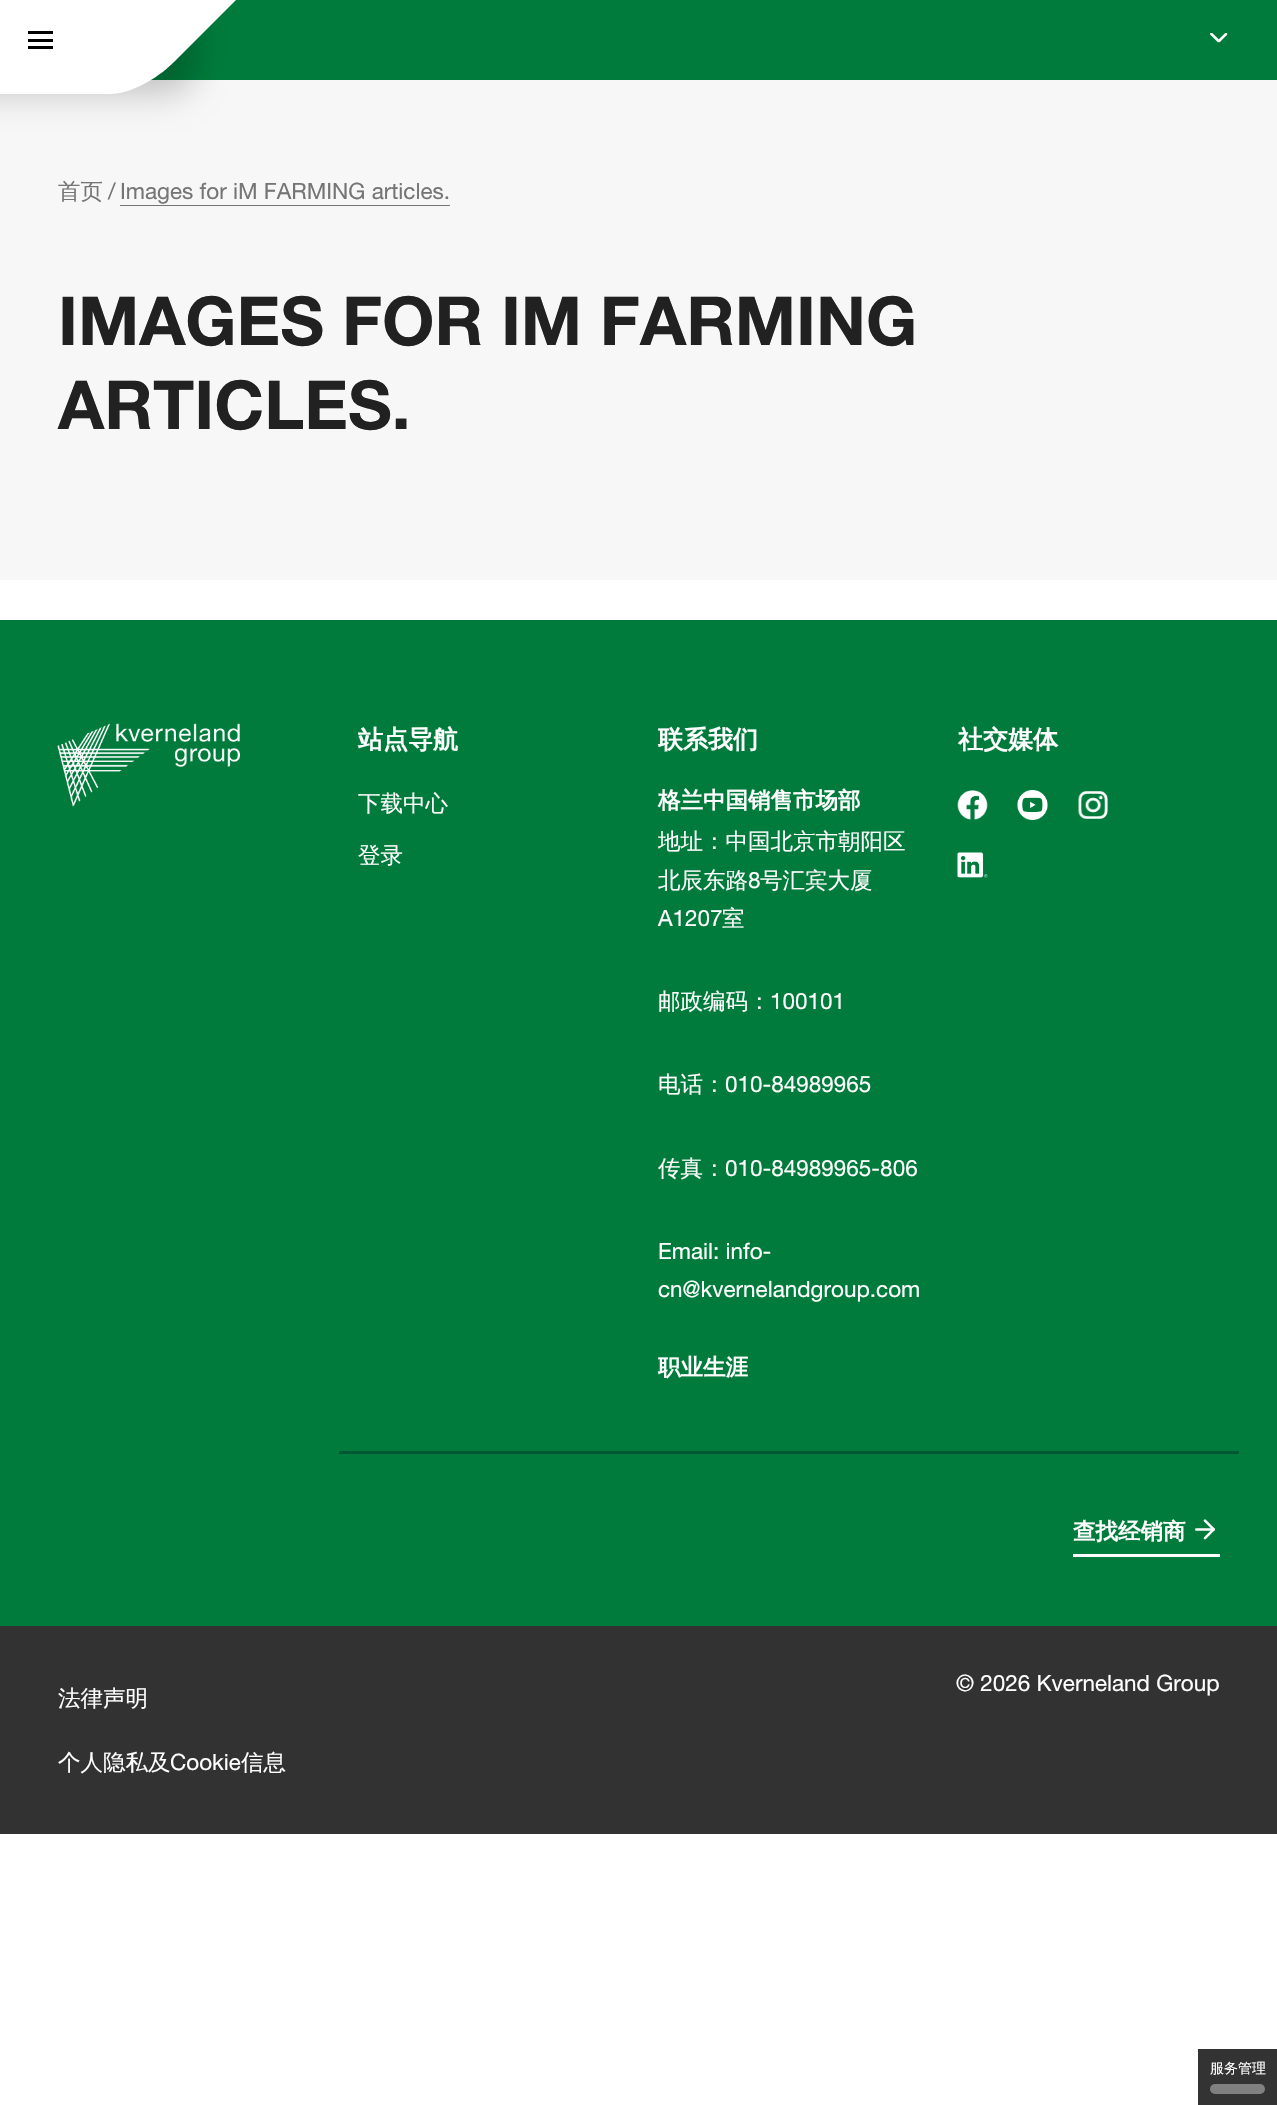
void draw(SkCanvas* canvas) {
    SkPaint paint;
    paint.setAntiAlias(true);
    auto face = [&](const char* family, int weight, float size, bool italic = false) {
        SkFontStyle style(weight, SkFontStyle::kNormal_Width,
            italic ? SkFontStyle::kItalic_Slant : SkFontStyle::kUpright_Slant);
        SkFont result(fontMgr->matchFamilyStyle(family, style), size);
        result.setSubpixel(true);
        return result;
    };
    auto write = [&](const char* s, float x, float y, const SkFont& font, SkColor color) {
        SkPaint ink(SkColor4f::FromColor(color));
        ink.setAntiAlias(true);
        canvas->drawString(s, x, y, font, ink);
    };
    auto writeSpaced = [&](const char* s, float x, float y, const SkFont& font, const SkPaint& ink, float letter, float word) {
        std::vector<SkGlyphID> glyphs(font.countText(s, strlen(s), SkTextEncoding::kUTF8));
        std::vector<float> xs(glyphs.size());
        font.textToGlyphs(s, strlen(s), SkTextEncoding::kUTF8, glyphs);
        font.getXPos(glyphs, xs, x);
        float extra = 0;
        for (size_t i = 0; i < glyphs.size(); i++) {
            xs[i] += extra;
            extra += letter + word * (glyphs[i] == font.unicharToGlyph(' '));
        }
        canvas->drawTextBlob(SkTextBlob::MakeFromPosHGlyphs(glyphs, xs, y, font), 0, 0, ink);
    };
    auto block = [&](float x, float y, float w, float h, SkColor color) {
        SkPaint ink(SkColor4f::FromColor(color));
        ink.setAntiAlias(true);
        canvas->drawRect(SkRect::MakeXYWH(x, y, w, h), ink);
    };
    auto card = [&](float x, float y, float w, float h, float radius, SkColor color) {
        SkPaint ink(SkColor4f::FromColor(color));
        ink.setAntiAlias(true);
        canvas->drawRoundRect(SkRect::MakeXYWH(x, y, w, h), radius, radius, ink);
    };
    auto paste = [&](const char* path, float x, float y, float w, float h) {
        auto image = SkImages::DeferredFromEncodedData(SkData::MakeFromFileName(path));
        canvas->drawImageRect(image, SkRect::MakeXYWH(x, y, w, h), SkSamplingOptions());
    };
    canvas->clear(SK_ColorWHITE);
    block(151, 0, 1126, 80, SkColorSetRGB(0, 123, 59));
    block(0, 80, 1277, 500, SkColorSetRGB(247, 247, 247));
    paint.setColor(SkColorSetARGB(51, 0, 0, 0));
    paint.setMaskFilter(SkMaskFilter::MakeBlur(kNormal_SkBlurStyle, 16));
    canvas->drawRoundRect(SkRect::MakeXYWH(-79, -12, 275, 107), 31, 31, paint);
    paint.setMaskFilter(nullptr);
    paint.setColor(SK_ColorWHITE);
    canvas->drawPath(SkPathBuilder().moveTo(-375, -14).lineTo(250, -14).lineTo(174, 62).cubicTo(156, 80, 129, 94, 111, 94).lineTo(-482, 94).close().detach(), paint);
    block(28, 39, 25, 3, SK_ColorBLACK);
    block(28, 31, 25, 3, SK_ColorBLACK);
    block(28, 46, 25, 3, SK_ColorBLACK);
    paste("pic1.png", 1210, 33, 18, 10);
    auto kFont1 = face("WenQuanYi Zen Hei", 500, 22.5f);
    write("首页", 58, 199, kFont1, SkColorSetRGB(117, 117, 117));
    auto kFont2 = face("Helvetica Neue", 400, 22.5f);
    write("/", 108, 199, kFont2, SkColorSetRGB(117, 117, 117));
    write("Images for iM FARMING articles.", 120, 199, kFont2, SkColorSetRGB(117, 117, 117));
    block(120, 205, 330, 1, SkColorSetRGB(117, 117, 117));
    auto kFont3 = face("Helvetica Neue", 700, 67.5f);
    paint.setColor(SkColorSetRGB(33, 33, 33));
    writeSpaced("IMAGES FOR IM FARMING", 58, 345, kFont3, paint, 0, -1);
    write("ARTICLES.", 58, 429, kFont3, SkColorSetRGB(33, 33, 33));
    block(0, 620, 1277, 1006, SkColorSetRGB(0, 123, 59));
    paste("pic2.png", 57, 723, 183, 84);
    auto kFont4 = face("WenQuanYi Zen Hei", 700, 25);
    write("站点导航", 358, 748, kFont4, SK_ColorWHITE);
    write("下载中心", 358, 811, kFont1, SK_ColorWHITE);
    write("登录", 358, 863, kFont1, SK_ColorWHITE);
    write("联系我们", 658, 748, kFont4, SK_ColorWHITE);
    auto kFont5 = face("WenQuanYi Zen Hei", 700, 22.5f);
    write("格兰中国销售市场部", 658, 808, kFont5, SK_ColorWHITE);
    write("地址：中国北京市朝阳区", 658, 849, kFont1, SK_ColorWHITE);
    write("北辰东路", 658, 888, kFont1, SK_ColorWHITE);
    write("8", 748, 888, kFont2, SK_ColorWHITE);
    write("号汇宾大厦", 760, 888, kFont1, SK_ColorWHITE);
    write("A1207", 658, 926, kFont2, SK_ColorWHITE);
    write("室", 722, 926, kFont1, SK_ColorWHITE);
    write("邮政编码：", 658, 1009, kFont1, SK_ColorWHITE);
    write("100101", 770, 1009, kFont2, SK_ColorWHITE);
    write("电话：", 658, 1092, kFont1, SK_ColorWHITE);
    write("010-84989965", 725, 1092, kFont2, SK_ColorWHITE);
    write("传真：", 658, 1176, kFont1, SK_ColorWHITE);
    write("010-84989965-806", 725, 1176, kFont2, SK_ColorWHITE);
    write("Email: info-", 658, 1259, kFont2, SK_ColorWHITE);
    write("cn@kvernelandgroup.com", 658, 1297, kFont2, SK_ColorWHITE);
    write("职业生涯", 658, 1375, kFont5, SK_ColorWHITE);
    write("社交媒体", 958, 748, kFont4, SK_ColorWHITE);
    paste("pic3.png", 957, 790, 31, 30);
    paste("pic4.png", 1017, 790, 31, 30);
    paste("pic5.png", 1078, 791, 30, 28);
    paste("pic6.png", 957, 852, 31, 26);
    block(339, 1451, 900, 3, SkColorSetRGB(0, 88, 51));
    block(1073, 1554, 147, 3, SK_ColorWHITE);
    write("查找经销商", 1073, 1539, kFont5, SK_ColorWHITE);
    paste("pic7.png", 1195, 1519, 20, 21);
    block(0, 1626, 1277, 208, SkColorSetRGB(50, 50, 50));
    write("法律声明", 58, 1706, kFont1, SK_ColorWHITE);
    write("个人隐私及", 58, 1770, kFont1, SK_ColorWHITE);
    write("Cookie", 170, 1770, kFont2, SK_ColorWHITE);
    write("信息", 241, 1770, kFont1, SK_ColorWHITE);
    write("© 2026 Kverneland Group", 956, 1691, kFont2, SK_ColorWHITE);
    block(1198, 2049, 79, 56, SkColorSetRGB(51, 51, 51));
    auto kFont6 = face("WenQuanYi Zen Hei", 500, 14);
    write("服务管理", 1210, 2073, kFont6, SK_ColorWHITE);
    card(1210, 2084, 55, 10, 5, SkColorSetRGB(128, 128, 128));
}
